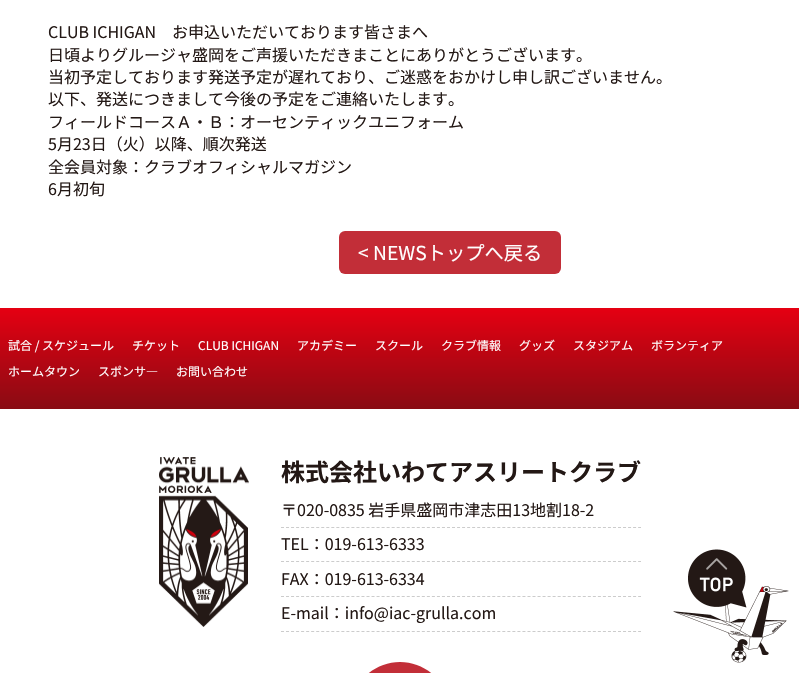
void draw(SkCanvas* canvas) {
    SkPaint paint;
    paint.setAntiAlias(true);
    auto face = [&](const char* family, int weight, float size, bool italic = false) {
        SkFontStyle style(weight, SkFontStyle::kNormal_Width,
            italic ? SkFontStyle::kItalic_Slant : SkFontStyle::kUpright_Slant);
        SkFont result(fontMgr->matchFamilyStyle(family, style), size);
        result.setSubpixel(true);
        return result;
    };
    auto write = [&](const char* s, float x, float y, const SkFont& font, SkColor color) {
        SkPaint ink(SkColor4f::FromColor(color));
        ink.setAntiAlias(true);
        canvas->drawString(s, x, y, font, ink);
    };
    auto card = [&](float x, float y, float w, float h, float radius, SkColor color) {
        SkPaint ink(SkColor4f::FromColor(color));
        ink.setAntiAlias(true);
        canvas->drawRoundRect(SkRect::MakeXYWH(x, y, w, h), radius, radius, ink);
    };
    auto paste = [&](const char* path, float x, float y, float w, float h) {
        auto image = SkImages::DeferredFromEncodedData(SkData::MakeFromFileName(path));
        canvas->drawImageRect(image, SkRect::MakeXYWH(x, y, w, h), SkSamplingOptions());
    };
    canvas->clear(SK_ColorWHITE);
    auto kFont1 = face("Noto Sans JP", 400, 16);
    write("CLUB ICHIGAN　お申込いただいております皆さまへ", 48, 38, kFont1, SkColorSetRGB(35, 24, 21));
    write("日頃よりグルージャ盛岡をご声援いただきまことにありがとうございます。", 48, 61, kFont1, SkColorSetRGB(35, 24, 21));
    write("当初予定しております発送予定が遅れており、ご迷惑をおかけし申し訳ございません。", 48, 83, kFont1, SkColorSetRGB(35, 24, 21));
    write("以下、発送につきまして今後の予定をご連絡いたします。", 48, 105, kFont1, SkColorSetRGB(35, 24, 21));
    write("フィールドコースＡ・Ｂ：オーセンティックユニフォーム", 48, 128, kFont1, SkColorSetRGB(35, 24, 21));
    write("5月23日（火）以降、順次発送", 48, 150, kFont1, SkColorSetRGB(35, 24, 21));
    write("全会員対象：クラブオフィシャルマガジン", 48, 173, kFont1, SkColorSetRGB(35, 24, 21));
    write("6月初旬", 48, 195, kFont1, SkColorSetRGB(35, 24, 21));
    card(339, 231, 222, 43, 6, SkColorSetRGB(194, 46, 56));
    auto kFont2 = face("Noto Sans JP", 400, 19.25f);
    write("< NEWSトップへ戻る", 358, 260, kFont2, SK_ColorWHITE);
    {
        const SkColor colors[] = {SkColorSetRGB(229, 0, 18), SkColorSetRGB(137, 11, 19)};
        const float stops[] = {0, 1};
        const SkPoint ends[] = {{400, 308}, {400, 409}};
        paint.setShader(SkGradientShader::MakeLinear(ends, colors, stops, 2, SkTileMode::kClamp));
        paint.setAlpha(255);
    }
    canvas->drawRect(SkRect::MakeXYWH(0, 308, 799, 101), paint);
    auto kFont3 = face("Noto Sans JP", 400, 12);
    write("試合 / スケジュール", 8, 350, kFont3, SK_ColorWHITE);
    write("チケット", 132, 350, kFont3, SK_ColorWHITE);
    write("CLUB ICHIGAN", 198, 350, kFont3, SK_ColorWHITE);
    write("アカデミー", 297, 350, kFont3, SK_ColorWHITE);
    write("スクール", 375, 350, kFont3, SK_ColorWHITE);
    write("クラブ情報", 441, 350, kFont3, SK_ColorWHITE);
    write("グッズ", 519, 350, kFont3, SK_ColorWHITE);
    write("スタジアム", 573, 350, kFont3, SK_ColorWHITE);
    write("ボランティア", 651, 350, kFont3, SK_ColorWHITE);
    write("ホームタウン", 8, 376, kFont3, SK_ColorWHITE);
    write("スポンサ―", 98, 376, kFont3, SK_ColorWHITE);
    write("お問い合わせ", 176, 376, kFont3, SK_ColorWHITE);
    paste("pic1.png", 159, 457, 90, 170);
    auto kFont4 = face("Noto Sans JP", 700, 24);
    write("株式会社いわてアスリートクラブ", 281, 481, kFont4, SkColorSetRGB(35, 24, 21));
    paint.setStyle(SkPaint::kStroke_Style);
    paint.setStrokeWidth(1);
    paint.setShader(nullptr);
    paint.setColor(SkColorSetRGB(204, 204, 204));
    paint.setPathEffect(SkDashPathEffect::Make({{3, 2.03f}}, 0));
    canvas->drawPath(SkPathBuilder().moveTo(281, 527.5f).lineTo(641, 527.5f).detach(), paint);
    paint.setPathEffect(nullptr);
    write("〒020-0835 岩手県盛岡市津志田13地割18-2", 281, 516, kFont1, SkColorSetRGB(35, 24, 21));
    paint.setPathEffect(SkDashPathEffect::Make({{3, 2.03f}}, 0));
    canvas->drawPath(SkPathBuilder().moveTo(281, 561.5f).lineTo(641, 561.5f).detach(), paint);
    paint.setPathEffect(nullptr);
    write("TEL：019-613-6333", 281, 550, kFont1, SkColorSetRGB(35, 24, 21));
    paint.setPathEffect(SkDashPathEffect::Make({{3, 2.03f}}, 0));
    canvas->drawPath(SkPathBuilder().moveTo(281, 596.5f).lineTo(641, 596.5f).detach(), paint);
    paint.setPathEffect(nullptr);
    write("FAX：019-613-6334", 281, 585, kFont1, SkColorSetRGB(35, 24, 21));
    paint.setPathEffect(SkDashPathEffect::Make({{3, 2.03f}}, 0));
    canvas->drawPath(SkPathBuilder().moveTo(281, 631.5f).lineTo(641, 631.5f).detach(), paint);
    paint.setPathEffect(nullptr);
    write("E-mail：info@iac-grulla.com", 281, 619, kFont1, SkColorSetRGB(35, 24, 21));
    paint.setStyle(SkPaint::kFill_Style);
    paint.setColor(SkColorSetRGB(194, 46, 56));
    canvas->drawPath(SkPathBuilder().moveTo(400, 662).cubicTo(427.5f, 662, 450, 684.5f, 450, 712).lineTo(350, 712).cubicTo(350, 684.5f, 372.5f, 662, 400, 662).close().detach(), paint);
    paste("pic2.png", 673, 549, 116, 114);
}
